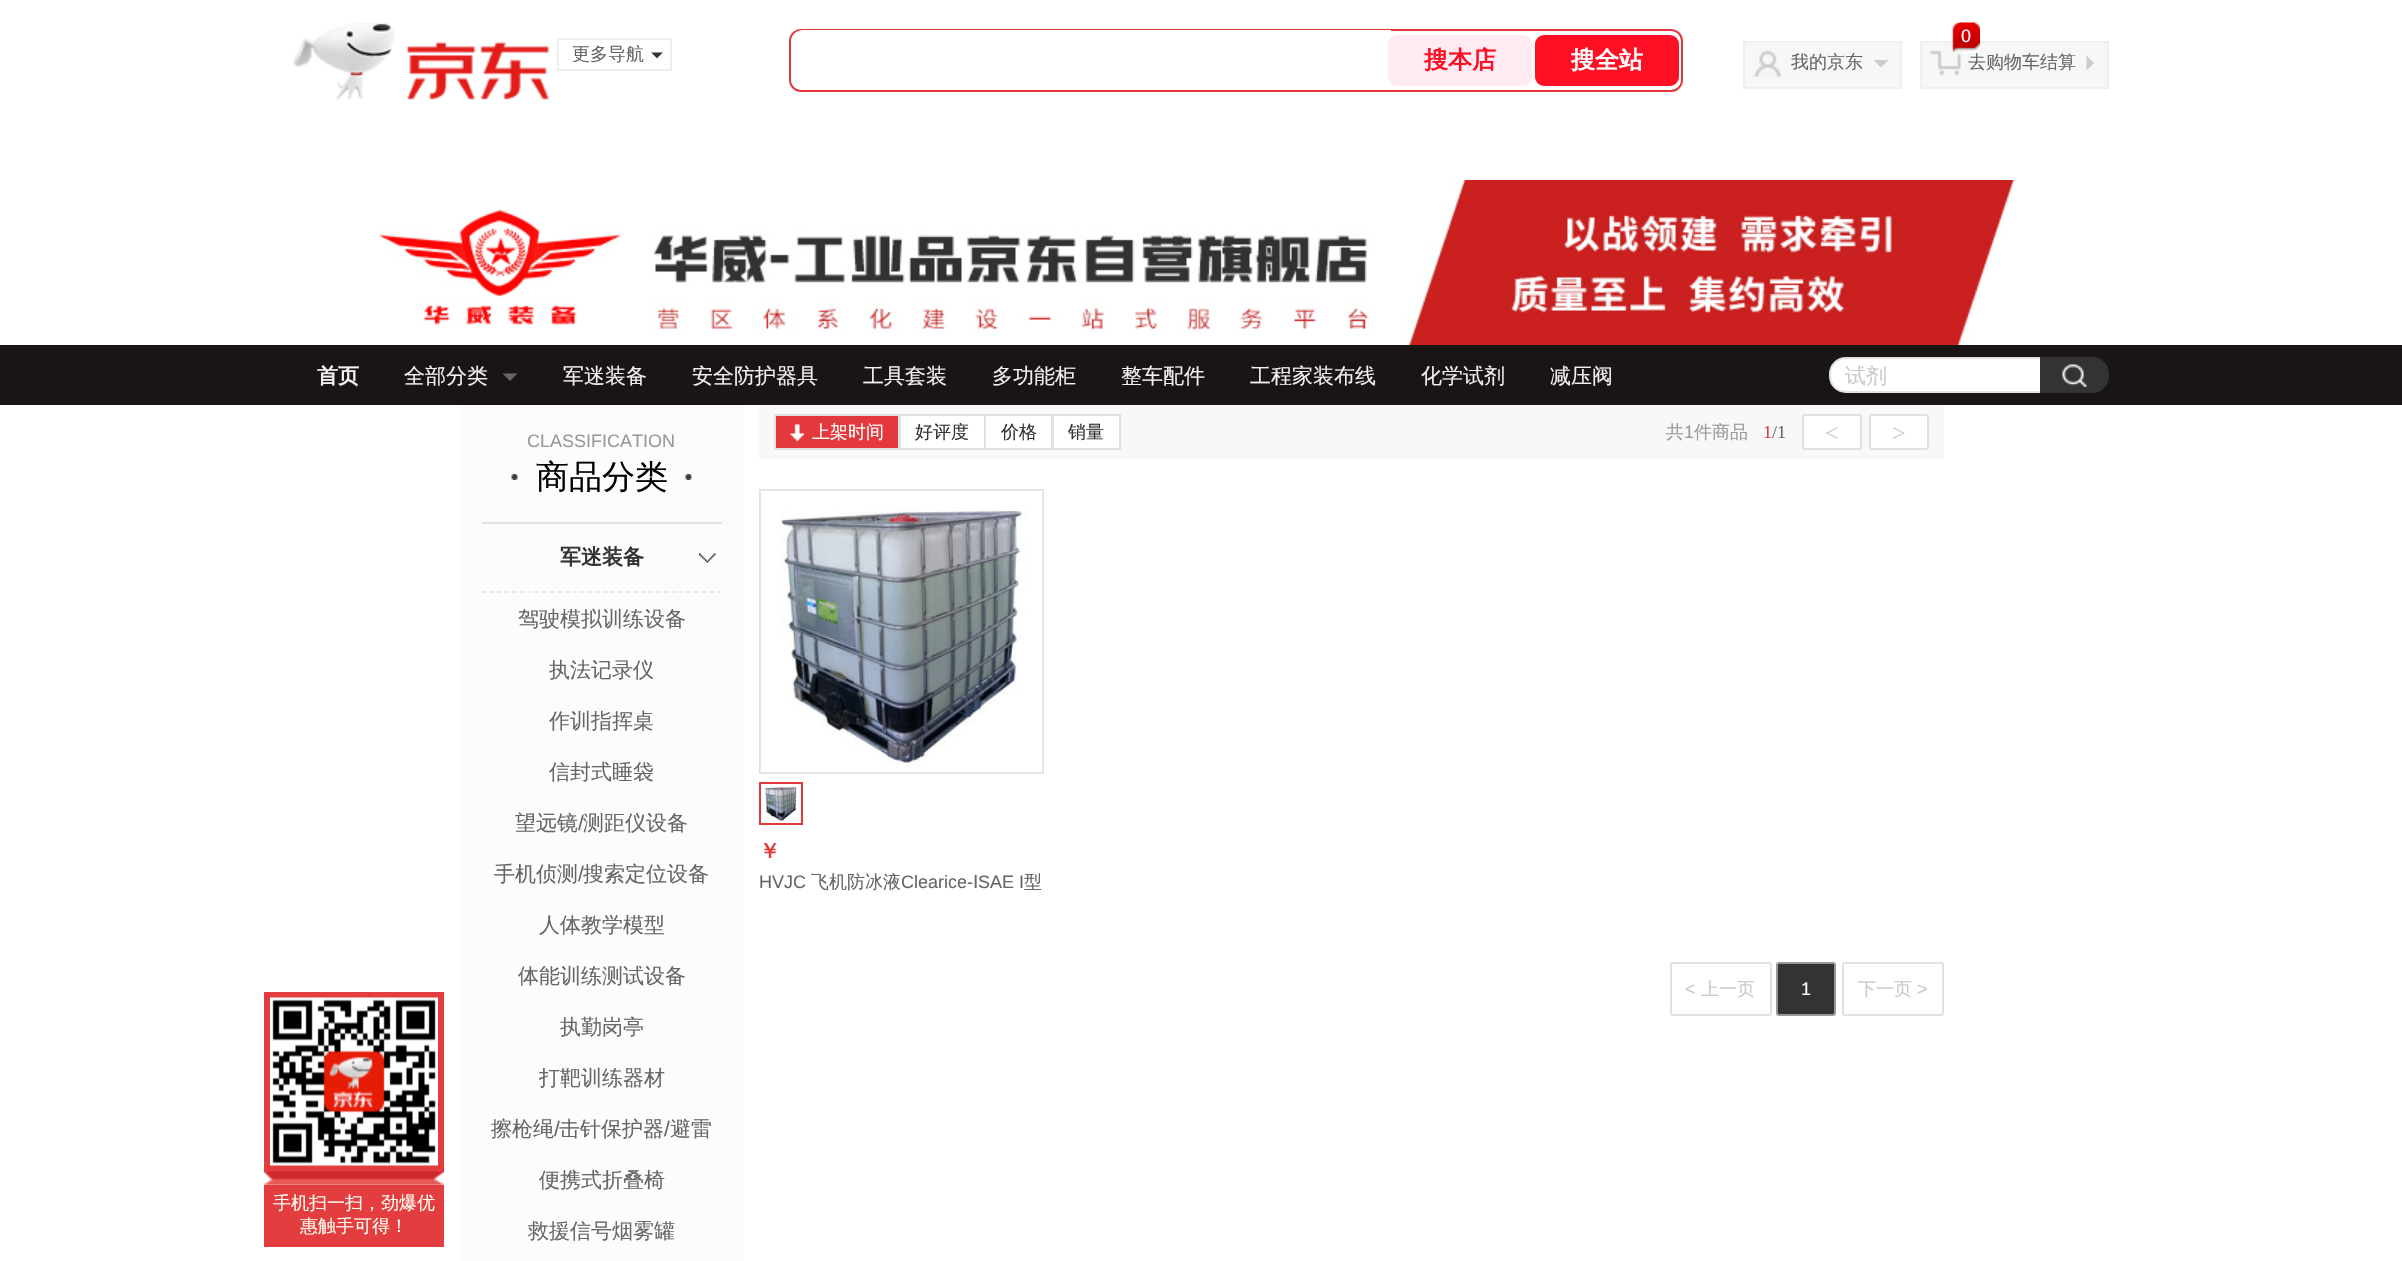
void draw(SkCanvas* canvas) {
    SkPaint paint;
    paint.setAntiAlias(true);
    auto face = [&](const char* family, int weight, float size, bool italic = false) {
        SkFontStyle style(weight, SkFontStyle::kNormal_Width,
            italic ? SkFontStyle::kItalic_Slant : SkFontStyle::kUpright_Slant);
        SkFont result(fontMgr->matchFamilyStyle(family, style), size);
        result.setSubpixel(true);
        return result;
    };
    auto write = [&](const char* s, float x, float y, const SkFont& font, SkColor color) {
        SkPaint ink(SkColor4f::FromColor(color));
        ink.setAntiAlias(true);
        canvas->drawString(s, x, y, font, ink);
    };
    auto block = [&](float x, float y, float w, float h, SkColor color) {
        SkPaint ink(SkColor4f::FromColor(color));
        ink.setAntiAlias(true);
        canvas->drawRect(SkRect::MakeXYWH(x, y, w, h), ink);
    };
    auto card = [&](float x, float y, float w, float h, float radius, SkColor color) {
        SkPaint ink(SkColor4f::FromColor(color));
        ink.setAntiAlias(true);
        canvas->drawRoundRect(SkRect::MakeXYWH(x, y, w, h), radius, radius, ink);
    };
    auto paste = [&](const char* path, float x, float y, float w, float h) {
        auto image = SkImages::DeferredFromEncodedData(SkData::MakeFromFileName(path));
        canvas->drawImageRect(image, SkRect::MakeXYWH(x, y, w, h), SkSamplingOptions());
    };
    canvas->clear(SK_ColorWHITE);
    paste("pic1.png", 294, 22, 255, 78);
    paint.setStyle(SkPaint::kStroke_Style);
    paint.setStrokeWidth(2);
    paint.setColor(SkColorSetRGB(238, 238, 238));
    canvas->drawRect(SkRect::MakeXYWH(558, 39, 113, 31), paint);
    auto kFont1 = face("WenQuanYi Zen Hei", 500, 18);
    write("更多导航", 572, 60, kFont1, SkColorSetRGB(102, 102, 102));
    paint.setStyle(SkPaint::kFill_Style);
    paint.setColor(SkColorSetRGB(51, 51, 51));
    canvas->drawPath(SkPathBuilder().moveTo(651, 52.5f).lineTo(663, 52.5f).lineTo(657, 58.5f).close().detach(), paint);
    paint.setColor(SK_ColorWHITE);
    canvas->drawPath(SkPathBuilder().moveTo(663, 52.5f).lineTo(663, 64.5f).lineTo(657, 58.5f).close().moveTo(651, 64.5f).lineTo(651, 52.5f).lineTo(657, 58.5f).close().detach(), paint);
    paint.setStyle(SkPaint::kStroke_Style);
    paint.setColor(SkColorSetRGB(228, 57, 60));
    canvas->drawRoundRect(SkRect::MakeXYWH(790, 30, 892, 61), 11, 11, paint);
    paint.setStyle(SkPaint::kFill_Style);
    paint.setColor(SK_ColorWHITE);
    canvas->drawPath(SkPathBuilder().moveTo(803, 30).lineTo(1391, 30).lineTo(1391, 90).lineTo(803, 90).cubicTo(796.5f, 90, 791, 84.5f, 791, 78).lineTo(791, 42).cubicTo(791, 35.5f, 796.5f, 30, 803, 30).close().detach(), paint);
    card(1388, 35, 144, 51, 9, SkColorSetRGB(255, 235, 241));
    auto kFont2 = face("WenQuanYi Zen Hei", 700, 24);
    write("搜本店", 1424, 68, kFont2, SkColorSetRGB(255, 15, 35));
    card(1535, 35, 144, 51, 9, SkColorSetRGB(255, 15, 35));
    write("搜全站", 1571, 68, kFont2, SK_ColorWHITE);
    block(1745, 43, 155, 44, SkColorSetRGB(247, 247, 247));
    paste("pic2.png", 1751, 50, 30, 27);
    paint.setStyle(SkPaint::kStroke_Style);
    paint.setColor(SkColorSetRGB(239, 239, 239));
    canvas->drawRect(SkRect::MakeXYWH(1744, 42, 157, 46), paint);
    write("我的京东", 1791, 68, kFont1, SkColorSetRGB(102, 102, 102));
    paint.setStyle(SkPaint::kFill_Style);
    paint.setColor(SkColorSetRGB(204, 204, 204));
    canvas->drawPath(SkPathBuilder().moveTo(1873.5f, 60).lineTo(1888.5f, 60).lineTo(1881, 67.5f).close().detach(), paint);
    block(1922, 43, 185, 44, SkColorSetRGB(247, 247, 247));
    paste("pic3.png", 1930, 50, 31, 26);
    paint.setStyle(SkPaint::kStroke_Style);
    paint.setColor(SkColorSetRGB(239, 239, 239));
    canvas->drawRect(SkRect::MakeXYWH(1921, 42, 187, 46), paint);
    write("去购物车结算", 1968, 68, kFont1, SkColorSetRGB(102, 102, 102));
    paste("pic4.png", 1951, 22, 29, 31);
    paste("pic5.png", 1960, 22, 20, 30);
    auto kFont3 = face("Liberation Sans", 400, 18);
    write("0", 1961, 42, kFont3, SK_ColorWHITE);
    paint.setStyle(SkPaint::kFill_Style);
    paint.setColor(SkColorSetRGB(204, 204, 204));
    canvas->drawPath(SkPathBuilder().moveTo(2086.5f, 70.5f).lineTo(2086.5f, 55.5f).lineTo(2094, 63).close().detach(), paint);
    paste("pic6.png", 379, 180, 1636, 165);
    block(0, 345, 2402, 60, SkColorSetRGB(26, 21, 21));
    auto kFont4 = face("WenQuanYi Zen Hei", 700, 21);
    write("首页", 317, 383, kFont4, SkColorSetRGB(247, 239, 239));
    auto kFont5 = face("WenQuanYi Zen Hei", 500, 21);
    write("全部分类", 404, 383, kFont5, SkColorSetRGB(247, 239, 239));
    paint.setColor(SkColorSetRGB(102, 102, 102));
    canvas->drawPath(SkPathBuilder().moveTo(502.5f, 373.5f).lineTo(517.5f, 373.5f).lineTo(510, 381).close().detach(), paint);
    write("军迷装备", 563, 383, kFont5, SkColorSetRGB(247, 239, 239));
    write("安全防护器具", 692, 383, kFont5, SkColorSetRGB(247, 239, 239));
    write("工具套装", 863, 383, kFont5, SkColorSetRGB(247, 239, 239));
    write("多功能柜", 992, 383, kFont5, SkColorSetRGB(247, 239, 239));
    write("整车配件", 1121, 383, kFont5, SkColorSetRGB(247, 239, 239));
    write("工程家装布线", 1250, 383, kFont5, SkColorSetRGB(247, 239, 239));
    write("化学试剂", 1421, 383, kFont5, SkColorSetRGB(247, 239, 239));
    write("减压阀", 1550, 383, kFont5, SkColorSetRGB(247, 239, 239));
    paint.setColor(SK_ColorWHITE);
    canvas->drawPath(SkPathBuilder().moveTo(1846, 358).lineTo(2041, 358).lineTo(2041, 392).lineTo(1846, 392).cubicTo(1837, 392, 1830, 385, 1830, 376).lineTo(1830, 374).cubicTo(1830, 365, 1837, 358, 1846, 358).close().detach(), paint);
    paint.setStyle(SkPaint::kStroke_Style);
    paint.setColor(SkColorSetRGB(225, 225, 225));
    canvas->drawPath(SkPathBuilder().moveTo(1846, 358).lineTo(2041, 358).lineTo(2041, 392).lineTo(1846, 392).cubicTo(1837, 392, 1830, 385, 1830, 376).lineTo(1830, 374).cubicTo(1830, 365, 1837, 358, 1846, 358).close().detach(), paint);
    write("试剂", 1845, 383, kFont5, SkColorSetRGB(201, 201, 201));
    paint.setStyle(SkPaint::kFill_Style);
    paint.setColor(SkColorSetRGB(51, 51, 51));
    canvas->drawPath(SkPathBuilder().moveTo(2040, 357).lineTo(2092, 357).cubicTo(2101.5f, 357, 2109, 364.5f, 2109, 374).lineTo(2109, 376).cubicTo(2109, 385.5f, 2101.5f, 393, 2092, 393).lineTo(2040, 393).close().detach(), paint);
    paste("pic7.png", 2062, 364, 25, 23);
    block(459, 405, 285, 856, SkColorSetRGB(252, 252, 252));
    write("CLASSIFICATION", 527, 447, kFont3, SkColorSetRGB(153, 153, 153));
    block(482, 522, 240, 2, SkColorSetRGB(225, 225, 225));
    paste("pic8.png", 511, 474, 7, 6);
    auto kFont6 = face("WenQuanYi Zen Hei", 500, 33);
    write("商品分类", 536, 488, kFont6, SK_ColorBLACK);
    paste("pic8.png", 685, 474, 7, 6);
    paint.setStyle(SkPaint::kStroke_Style);
    paint.setStrokeWidth(1.5f);
    paint.setColor(SkColorSetRGB(225, 225, 225));
    paint.setPathEffect(SkDashPathEffect::Make({{4.5f, 3.09f}}, 0));
    canvas->drawPath(SkPathBuilder().moveTo(481.5f, 592).lineTo(721.5f, 592).detach(), paint);
    paint.setPathEffect(nullptr);
    write("军迷装备", 560, 564, kFont4, SkColorSetRGB(51, 51, 51));
    paste("pic9.png", 699, 553, 17, 10);
    write("驾驶模拟训练设备", 518, 626, kFont5, SkColorSetRGB(102, 102, 102));
    write("执法记录仪", 549, 677, kFont5, SkColorSetRGB(102, 102, 102));
    write("作训指挥桌", 549, 728, kFont5, SkColorSetRGB(102, 102, 102));
    write("信封式睡袋", 549, 779, kFont5, SkColorSetRGB(102, 102, 102));
    write("望远镜", 515, 830, kFont5, SkColorSetRGB(102, 102, 102));
    auto kFont7 = face("Liberation Sans", 400, 21);
    write("/", 578, 830, kFont7, SkColorSetRGB(102, 102, 102));
    write("测距仪设备", 583, 830, kFont5, SkColorSetRGB(102, 102, 102));
    write("手机侦测", 494, 881, kFont5, SkColorSetRGB(102, 102, 102));
    write("/", 578, 881, kFont7, SkColorSetRGB(102, 102, 102));
    write("搜索定位设备", 583, 881, kFont5, SkColorSetRGB(102, 102, 102));
    write("人体教学模型", 539, 932, kFont5, SkColorSetRGB(102, 102, 102));
    write("体能训练测试设备", 518, 983, kFont5, SkColorSetRGB(102, 102, 102));
    write("执勤岗亭", 560, 1034, kFont5, SkColorSetRGB(102, 102, 102));
    write("打靶训练器材", 539, 1085, kFont5, SkColorSetRGB(102, 102, 102));
    write("擦枪绳", 491, 1136, kFont5, SkColorSetRGB(102, 102, 102));
    write("/", 554, 1136, kFont7, SkColorSetRGB(102, 102, 102));
    write("击针保护器", 559, 1136, kFont5, SkColorSetRGB(102, 102, 102));
    write("/", 664, 1136, kFont7, SkColorSetRGB(102, 102, 102));
    write("避雷", 670, 1136, kFont5, SkColorSetRGB(102, 102, 102));
    write("便携式折叠椅", 539, 1187, kFont5, SkColorSetRGB(102, 102, 102));
    write("救援信号烟雾罐", 528, 1238, kFont5, SkColorSetRGB(102, 102, 102));
    block(759, 405, 1185, 54, SkColorSetRGB(248, 248, 248));
    paint.setStyle(SkPaint::kFill_Style);
    paint.setColor(SkColorSetRGB(228, 57, 60));
    canvas->drawRect(SkRect::MakeXYWH(775, 415, 124, 34), paint);
    paint.setStyle(SkPaint::kStroke_Style);
    paint.setStrokeWidth(2);
    paint.setColor(SkColorSetRGB(225, 225, 225));
    canvas->drawRect(SkRect::MakeXYWH(775, 415, 124, 34), paint);
    paste("pic10.png", 790, 424, 14, 17);
    write("上架时间", 812, 438, kFont1, SK_ColorWHITE);
    paint.setStyle(SkPaint::kFill_Style);
    paint.setColor(SK_ColorWHITE);
    canvas->drawRect(SkRect::MakeXYWH(900, 415, 85, 34), paint);
    paint.setStyle(SkPaint::kStroke_Style);
    paint.setColor(SkColorSetRGB(225, 225, 225));
    canvas->drawRect(SkRect::MakeXYWH(900, 415, 85, 34), paint);
    write("好评度", 915, 438, kFont1, SkColorSetRGB(51, 51, 51));
    paint.setStyle(SkPaint::kFill_Style);
    paint.setColor(SK_ColorWHITE);
    canvas->drawRect(SkRect::MakeXYWH(985, 415, 67, 34), paint);
    paint.setStyle(SkPaint::kStroke_Style);
    paint.setColor(SkColorSetRGB(225, 225, 225));
    canvas->drawRect(SkRect::MakeXYWH(985, 415, 67, 34), paint);
    write("价格", 1001, 438, kFont1, SkColorSetRGB(51, 51, 51));
    paint.setStyle(SkPaint::kFill_Style);
    paint.setColor(SK_ColorWHITE);
    canvas->drawRect(SkRect::MakeXYWH(1053, 415, 67, 34), paint);
    paint.setStyle(SkPaint::kStroke_Style);
    paint.setColor(SkColorSetRGB(225, 225, 225));
    canvas->drawRect(SkRect::MakeXYWH(1053, 415, 67, 34), paint);
    write("销量", 1068, 438, kFont1, SkColorSetRGB(51, 51, 51));
    write("共", 1666, 438, kFont1, SkColorSetRGB(153, 153, 153));
    write("1", 1684, 438, kFont3, SkColorSetRGB(153, 153, 153));
    write("件商品", 1694, 438, kFont1, SkColorSetRGB(153, 153, 153));
    auto kFont8 = face("Liberation Serif", 400, 18);
    write("1", 1763, 438, kFont8, SkColorSetRGB(228, 57, 60));
    write("/1", 1772, 438, kFont8, SkColorSetRGB(102, 102, 102));
    paint.setStyle(SkPaint::kFill_Style);
    paint.setColor(SK_ColorWHITE);
    canvas->drawRoundRect(SkRect::MakeXYWH(1803, 415, 58, 34), 2, 2, paint);
    paint.setStyle(SkPaint::kStroke_Style);
    paint.setColor(SkColorSetRGB(225, 225, 225));
    canvas->drawRoundRect(SkRect::MakeXYWH(1803, 415, 58, 34), 2, 2, paint);
    auto kFont9 = face("Liberation Serif", 400, 24);
    write("<", 1825, 441, kFont9, SkColorSetRGB(201, 201, 201));
    paint.setStyle(SkPaint::kFill_Style);
    paint.setColor(SK_ColorWHITE);
    canvas->drawRoundRect(SkRect::MakeXYWH(1870, 415, 58, 34), 2, 2, paint);
    paint.setStyle(SkPaint::kStroke_Style);
    paint.setColor(SkColorSetRGB(225, 225, 225));
    canvas->drawRoundRect(SkRect::MakeXYWH(1870, 415, 58, 34), 2, 2, paint);
    write(">", 1892, 441, kFont9, SkColorSetRGB(201, 201, 201));
    canvas->drawRect(SkRect::MakeXYWH(760, 490, 283, 283), paint);
    paste("pic11.png", 760, 490, 283, 283);
    paint.setColor(SkColorSetRGB(228, 57, 60));
    canvas->drawRect(SkRect::MakeXYWH(760, 783, 42, 41), paint);
    paste("pic12.png", 762, 784, 35, 38);
    write("￥", 759, 858, kFont4, SkColorSetRGB(228, 57, 60));
    write("HVJC", 759, 888, kFont3, SkColorSetRGB(102, 102, 102));
    write("飞机防冰液", 811, 888, kFont1, SkColorSetRGB(102, 102, 102));
    write("Clearice-", 901, 888, kFont3, SkColorSetRGB(102, 102, 102));
    auto kFont10 = face("DejaVu Sans", 400, 18);
    write("Ⅰ", 973, 888, kFont10, SkColorSetRGB(102, 102, 102));
    write("SAE I", 978, 888, kFont3, SkColorSetRGB(102, 102, 102));
    write("型", 1024, 888, kFont1, SkColorSetRGB(102, 102, 102));
    paint.setColor(SkColorSetRGB(225, 225, 225));
    canvas->drawRoundRect(SkRect::MakeXYWH(1671, 963, 100, 52), 2, 2, paint);
    write("<", 1685, 995, kFont3, SkColorSetRGB(201, 201, 201));
    write("上一页", 1701, 995, kFont1, SkColorSetRGB(201, 201, 201));
    paint.setStyle(SkPaint::kFill_Style);
    paint.setColor(SkColorSetRGB(51, 51, 51));
    canvas->drawRoundRect(SkRect::MakeXYWH(1777, 963, 58, 52), 2, 2, paint);
    paint.setStyle(SkPaint::kStroke_Style);
    paint.setColor(SkColorSetRGB(153, 153, 153));
    canvas->drawRoundRect(SkRect::MakeXYWH(1777, 963, 58, 52), 2, 2, paint);
    write("1", 1801, 995, kFont3, SK_ColorWHITE);
    paint.setColor(SkColorSetRGB(225, 225, 225));
    canvas->drawRoundRect(SkRect::MakeXYWH(1843, 963, 100, 52), 2, 2, paint);
    write("下一页", 1858, 995, kFont1, SkColorSetRGB(201, 201, 201));
    write(">", 1917, 995, kFont3, SkColorSetRGB(201, 201, 201));
    block(264, 992, 180, 180, SkColorSetRGB(228, 61, 63));
    paste("pic13.png", 270, 997, 168, 169);
    paste("pic14.png", 264, 1171, 180, 14);
    block(264, 1185, 180, 62, SkColorSetRGB(228, 61, 63));
    write("手机扫一扫，劲爆优", 273, 1209, kFont1, SkColorSetRGB(255, 251, 238));
    write("惠触手可得！", 300, 1232, kFont1, SkColorSetRGB(255, 251, 238));
}
